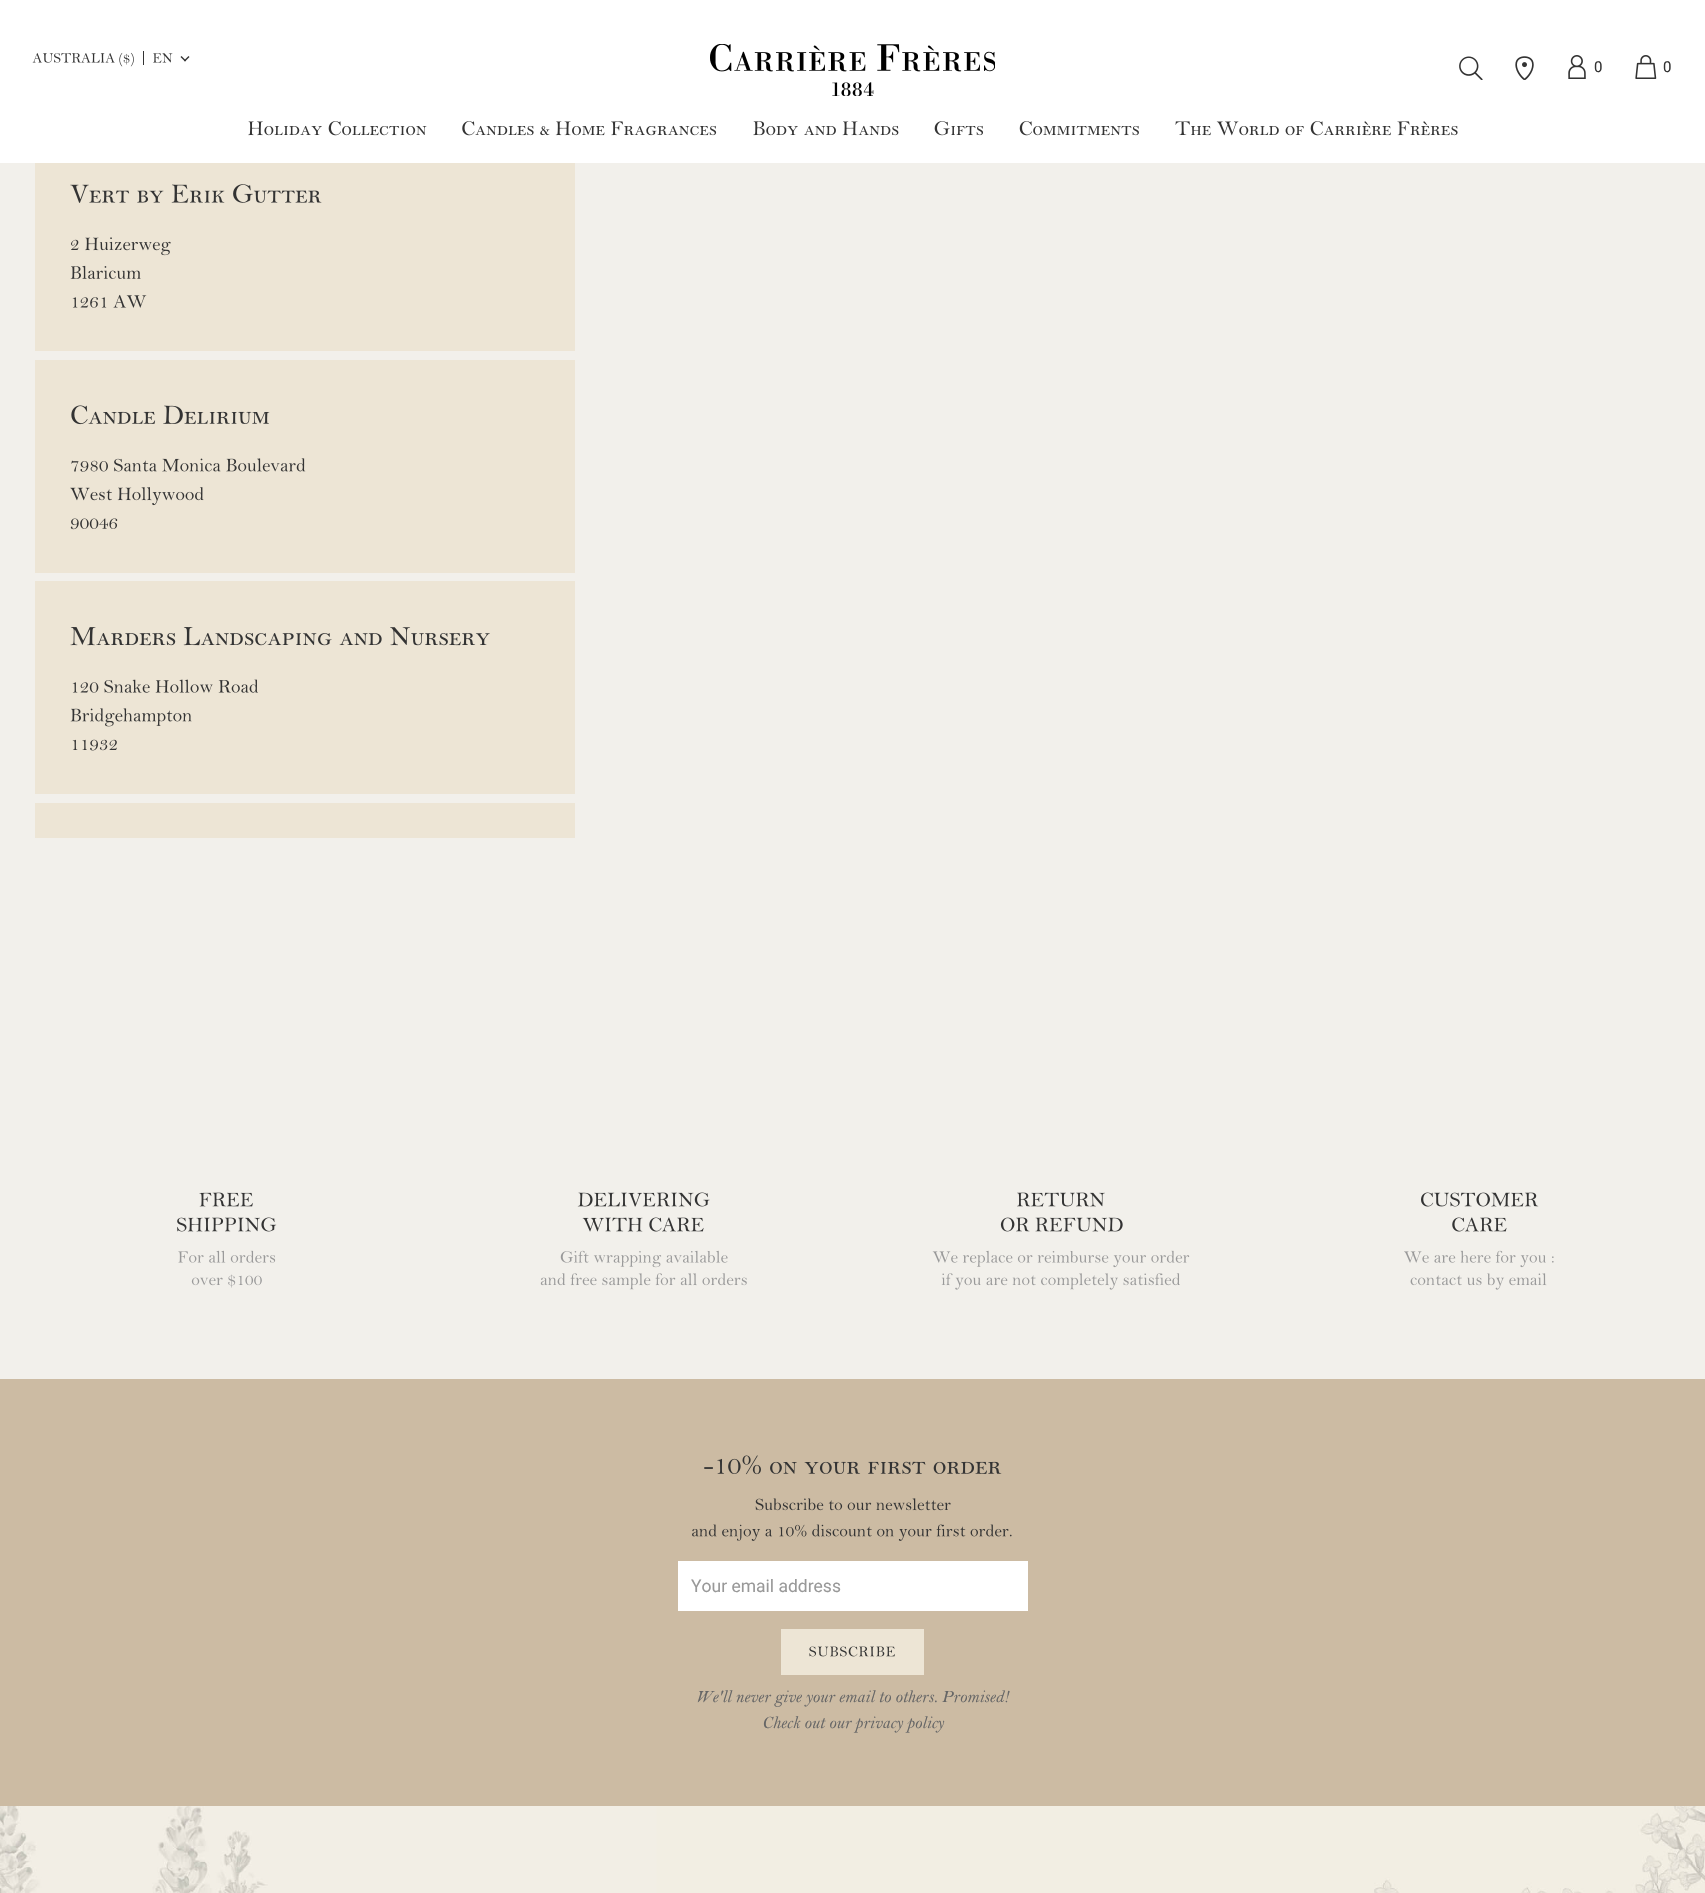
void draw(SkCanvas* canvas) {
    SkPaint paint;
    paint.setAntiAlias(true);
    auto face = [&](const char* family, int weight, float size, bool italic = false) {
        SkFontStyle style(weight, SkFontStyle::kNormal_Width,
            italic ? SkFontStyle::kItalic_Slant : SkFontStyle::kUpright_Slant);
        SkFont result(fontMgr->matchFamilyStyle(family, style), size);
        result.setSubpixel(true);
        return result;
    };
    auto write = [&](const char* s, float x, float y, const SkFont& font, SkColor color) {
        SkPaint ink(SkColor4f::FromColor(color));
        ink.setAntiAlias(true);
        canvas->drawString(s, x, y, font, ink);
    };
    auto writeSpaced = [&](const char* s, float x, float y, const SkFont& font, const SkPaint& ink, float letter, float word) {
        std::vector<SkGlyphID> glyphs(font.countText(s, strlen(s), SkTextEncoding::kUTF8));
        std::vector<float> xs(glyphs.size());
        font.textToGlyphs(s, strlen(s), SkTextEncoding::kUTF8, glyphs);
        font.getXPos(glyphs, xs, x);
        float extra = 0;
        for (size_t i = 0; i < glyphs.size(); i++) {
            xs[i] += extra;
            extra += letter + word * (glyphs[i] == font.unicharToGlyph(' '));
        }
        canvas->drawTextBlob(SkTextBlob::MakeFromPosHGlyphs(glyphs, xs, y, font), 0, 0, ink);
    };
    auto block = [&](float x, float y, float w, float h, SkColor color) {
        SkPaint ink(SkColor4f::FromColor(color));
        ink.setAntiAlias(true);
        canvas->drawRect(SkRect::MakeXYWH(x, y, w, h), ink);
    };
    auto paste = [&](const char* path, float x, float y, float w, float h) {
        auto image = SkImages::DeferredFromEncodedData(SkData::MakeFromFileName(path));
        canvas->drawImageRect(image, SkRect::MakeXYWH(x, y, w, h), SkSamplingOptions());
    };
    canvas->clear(SkColorSetRGB(242, 240, 235));
    block(0, 0, 1705, 163, SK_ColorWHITE);
    paste("pic1.png", 32, 53, 83, 10);
    paste("pic2.png", 119, 52, 15, 15);
    block(143, 51, 1, 14, SkColorSetRGB(51, 51, 51));
    paste("pic3.png", 153, 53, 20, 10);
    paint.setColor(SkColorSetRGB(51, 51, 51));
    canvas->drawPath(SkPathBuilder().moveTo(188.5f, 56).lineTo(189.5f, 57).lineTo(185, 61.5f).lineTo(184, 60.5f).close().detach(), paint);
    canvas->drawPath(SkPathBuilder().moveTo(181.5f, 56).lineTo(186, 60.5f).lineTo(185, 61.5f).lineTo(180.5f, 57).close().detach(), paint);
    paste("pic4.png", 710, 44, 285, 52);
    paste("pic5.png", 1459, 56, 24, 24);
    paste("pic6.png", 1515, 56, 19, 24);
    paste("pic7.png", 1568, 55, 18, 24);
    auto kFont1 = face("Roboto", 400, 15);
    writeSpaced("0", 1594, 72, kFont1, paint, 1, 0);
    paste("pic8.png", 1635, 55, 22, 24);
    writeSpaced("0", 1663, 72, kFont1, paint, 1, 0);
    paste("pic9.png", 248, 121, 179, 15);
    paste("pic10.png", 462, 121, 255, 15);
    paste("pic11.png", 753, 121, 146, 15);
    paste("pic12.png", 934, 121, 49, 15);
    paste("pic13.png", 1019, 121, 120, 15);
    paste("pic14.png", 1175, 121, 283, 15);
    block(35, 163, 540, 188, SkColorSetRGB(237, 229, 213));
    paste("pic15.png", 70, 184, 252, 19);
    paste("pic16.png", 71, 237, 100, 19);
    paste("pic17.png", 70, 265, 71, 14);
    paste("pic18.png", 72, 294, 75, 14);
    block(35, 360, 540, 213, SkColorSetRGB(237, 229, 213));
    paste("pic19.png", 71, 405, 199, 20);
    paste("pic20.png", 71, 458, 235, 14);
    paste("pic21.png", 70, 487, 134, 19);
    paste("pic22.png", 70, 518, 48, 12);
    block(35, 581, 540, 213, SkColorSetRGB(237, 229, 213));
    paste("pic23.png", 70, 627, 420, 19);
    paste("pic24.png", 72, 679, 186, 14);
    paste("pic25.png", 70, 708, 122, 19);
    paste("pic26.png", 72, 739, 45, 12);
    block(35, 803, 540, 35, SkColorSetRGB(237, 229, 213));
    block(656, 1806, 393, 87, SkColorSetRGB(242, 238, 227));
    paste("pic27.png", 0, 1806, 1705, 87);
    paste("pic28.png", 199, 1192, 54, 15);
    paste("pic29.png", 177, 1217, 100, 15);
    paste("pic30.png", 178, 1250, 98, 13);
    paste("pic31.png", 191, 1274, 71, 14);
    paste("pic32.png", 577, 1192, 133, 15);
    paste("pic33.png", 582, 1217, 122, 15);
    paste("pic34.png", 560, 1250, 168, 18);
    paste("pic35.png", 540, 1273, 207, 17);
    paste("pic36.png", 1017, 1192, 88, 15);
    paste("pic37.png", 1000, 1217, 123, 15);
    paste("pic38.png", 932, 1250, 258, 18);
    paste("pic39.png", 941, 1273, 239, 17);
    paste("pic40.png", 1421, 1192, 118, 15);
    paste("pic41.png", 1452, 1217, 55, 15);
    paste("pic42.png", 1404, 1250, 150, 18);
    paste("pic43.png", 1410, 1273, 137, 17);
    block(0, 1379, 1705, 427, SkColorSetRGB(204, 187, 163));
    paste("pic44.png", 704, 1455, 298, 20);
    paste("pic45.png", 755, 1498, 196, 13);
    paste("pic46.png", 692, 1524, 320, 17);
    block(678, 1561, 350, 50, SK_ColorWHITE);
    auto kFont2 = face("Roboto", 400, 17.5f);
    write("Your email address", 691, 1592, kFont2, SkColorSetRGB(153, 153, 153));
    block(781, 1629, 143, 46, SkColorSetRGB(237, 229, 213));
    paste("pic47.png", 809, 1646, 86, 11);
    auto kFont3 = face("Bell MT", 400, 17.5f, true);
    write("We'll never give your email to others. Promised!", 696, 1702, kFont3, SkColorSetRGB(102, 102, 102));
    write("Check out our privacy policy", 762, 1728, kFont3, SkColorSetRGB(102, 102, 102));
}
